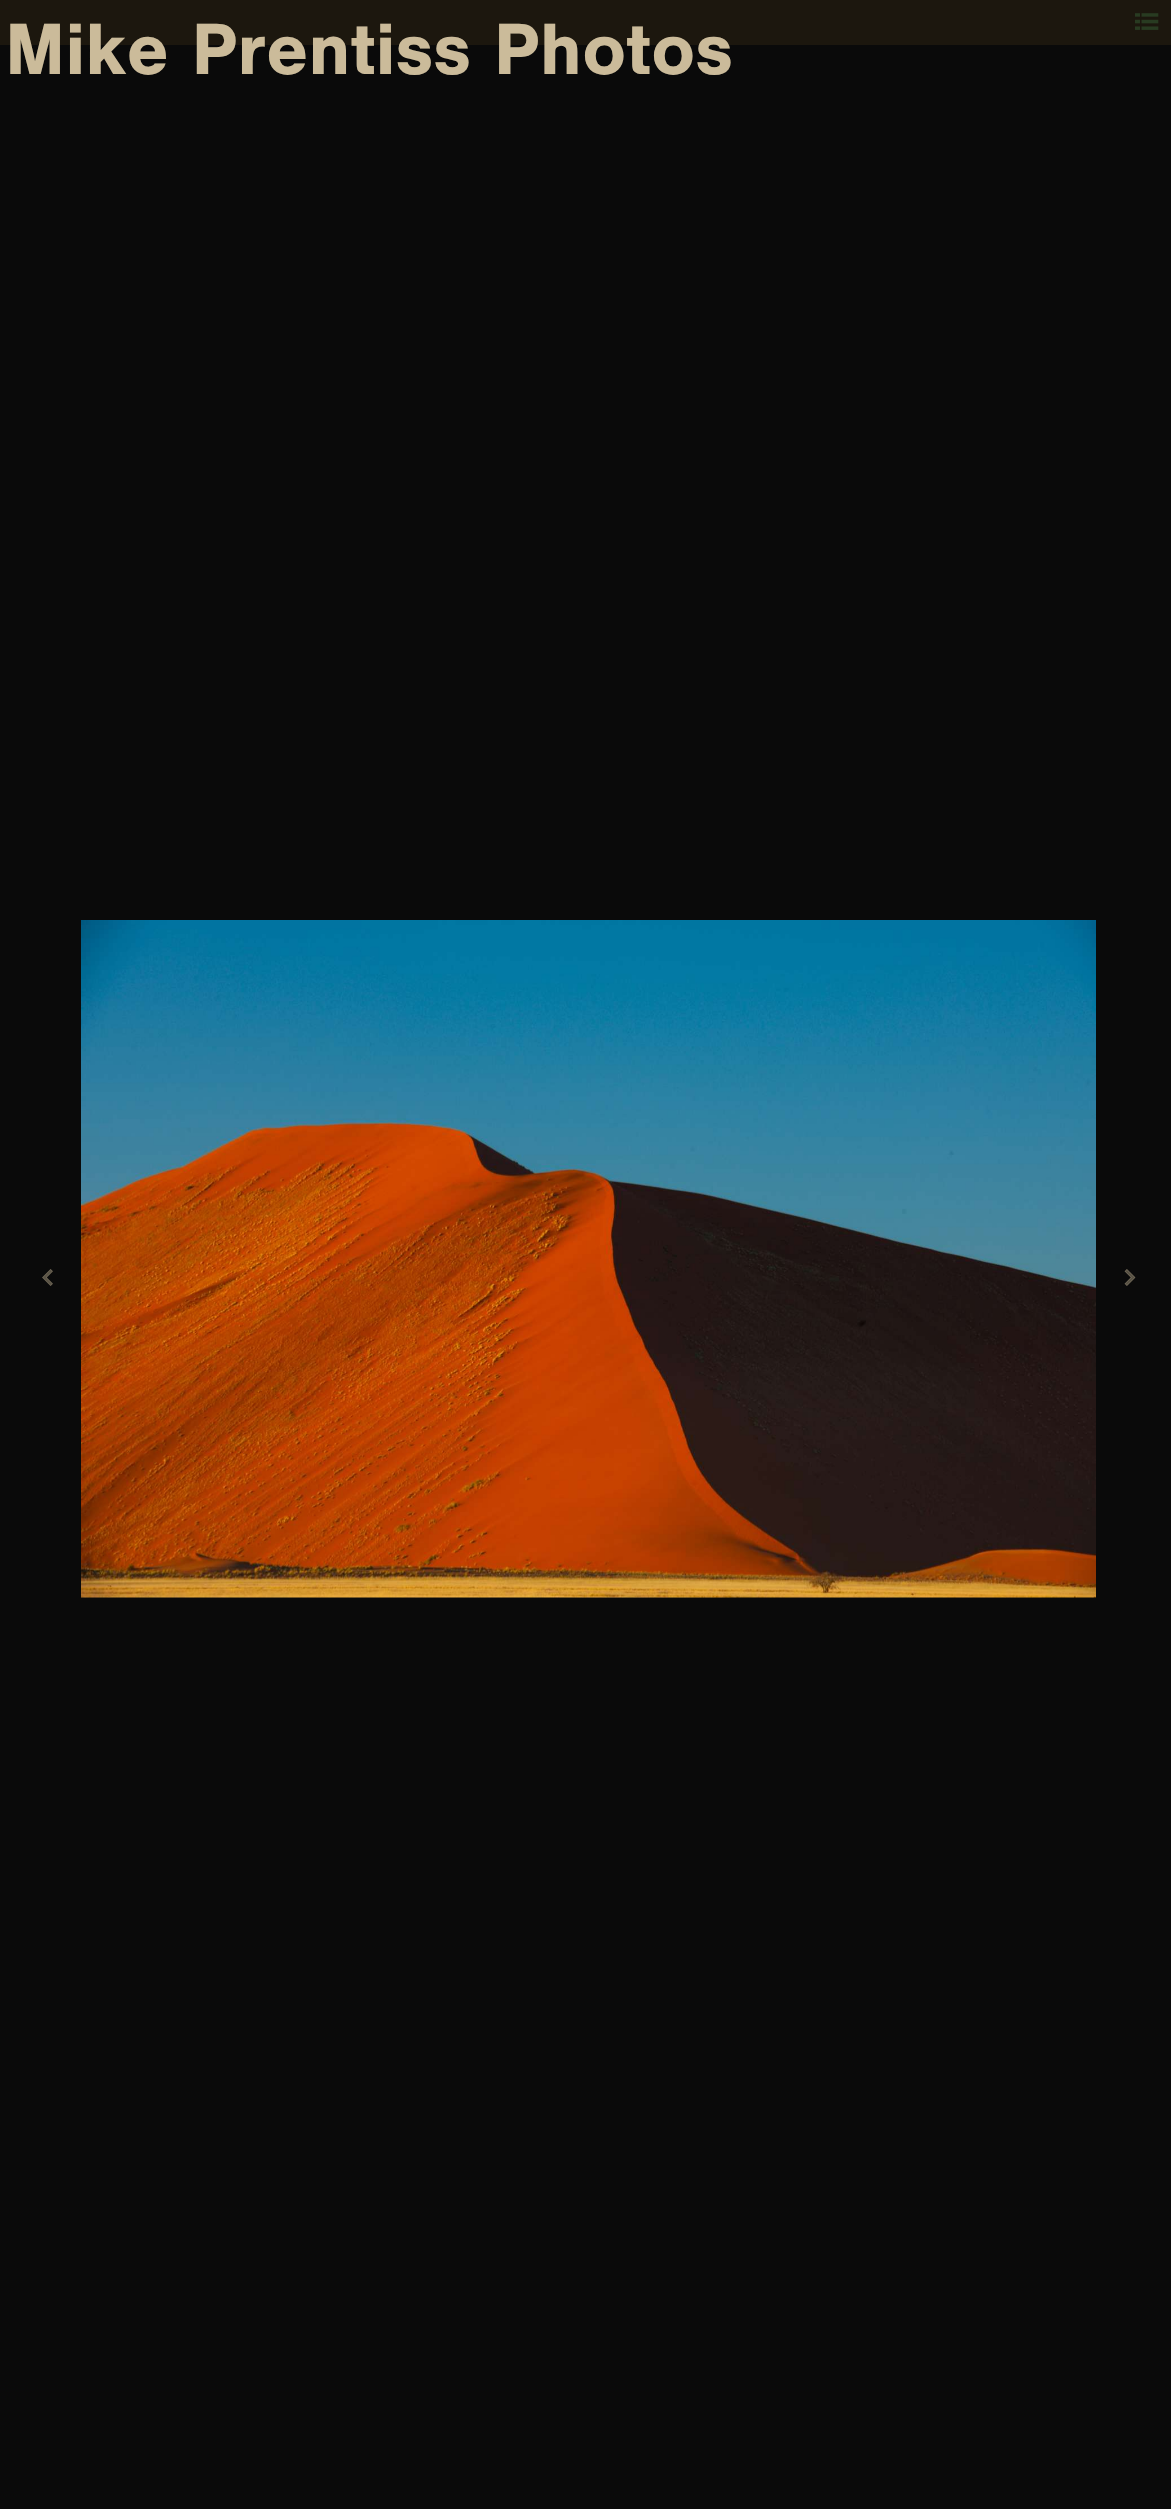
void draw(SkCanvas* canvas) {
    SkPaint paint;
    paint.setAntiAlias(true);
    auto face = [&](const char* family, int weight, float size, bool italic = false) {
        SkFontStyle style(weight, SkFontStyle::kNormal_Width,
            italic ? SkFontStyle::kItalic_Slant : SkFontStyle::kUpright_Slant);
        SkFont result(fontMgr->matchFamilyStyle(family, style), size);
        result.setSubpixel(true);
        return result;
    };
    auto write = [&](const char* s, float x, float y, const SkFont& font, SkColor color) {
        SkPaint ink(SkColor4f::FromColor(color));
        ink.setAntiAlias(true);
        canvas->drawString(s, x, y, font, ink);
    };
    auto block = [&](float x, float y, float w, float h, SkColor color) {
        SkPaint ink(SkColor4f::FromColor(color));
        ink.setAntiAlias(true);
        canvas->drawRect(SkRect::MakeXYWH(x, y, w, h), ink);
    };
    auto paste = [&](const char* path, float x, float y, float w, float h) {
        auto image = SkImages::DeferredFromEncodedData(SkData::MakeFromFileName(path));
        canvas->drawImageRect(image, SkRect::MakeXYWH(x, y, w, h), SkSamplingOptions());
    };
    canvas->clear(SkColorSetRGB(10, 10, 10));
    block(0, 0, 1171, 45, SkColorSetRGB(28, 23, 14));
    auto kFont1 = face("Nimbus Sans", 700, 75.25f);
    write("Mike Prentiss Photos", 5, 74, kFont1, SkColorSetRGB(203, 187, 154));
    paste("pic1.png", 1135, 13, 24, 17);
    paste("pic2.png", 42, 1269, 11, 17);
    paste("pic3.png", 81, 920, 1015, 678);
    paste("pic4.png", 1124, 1269, 12, 17);
}
